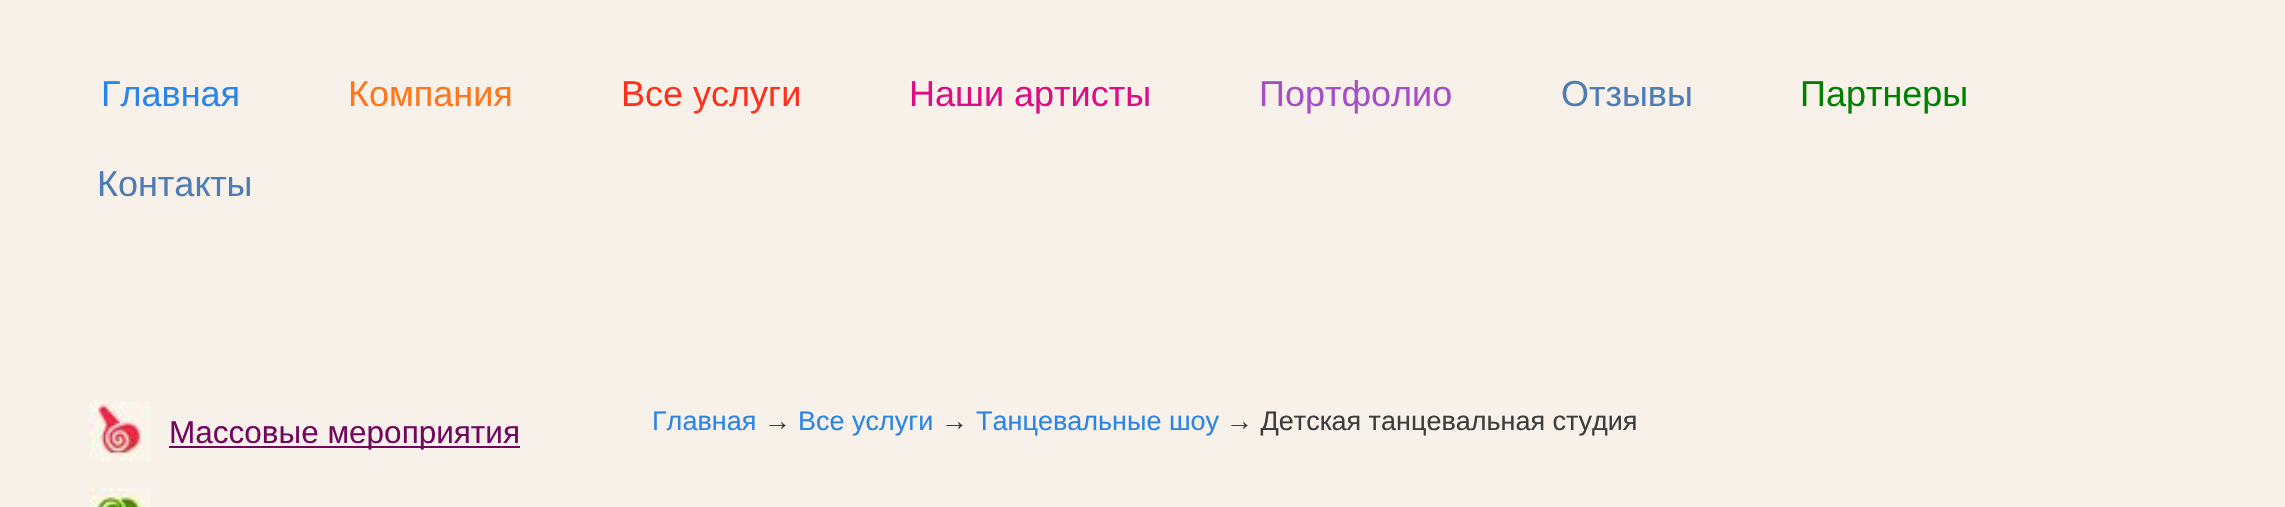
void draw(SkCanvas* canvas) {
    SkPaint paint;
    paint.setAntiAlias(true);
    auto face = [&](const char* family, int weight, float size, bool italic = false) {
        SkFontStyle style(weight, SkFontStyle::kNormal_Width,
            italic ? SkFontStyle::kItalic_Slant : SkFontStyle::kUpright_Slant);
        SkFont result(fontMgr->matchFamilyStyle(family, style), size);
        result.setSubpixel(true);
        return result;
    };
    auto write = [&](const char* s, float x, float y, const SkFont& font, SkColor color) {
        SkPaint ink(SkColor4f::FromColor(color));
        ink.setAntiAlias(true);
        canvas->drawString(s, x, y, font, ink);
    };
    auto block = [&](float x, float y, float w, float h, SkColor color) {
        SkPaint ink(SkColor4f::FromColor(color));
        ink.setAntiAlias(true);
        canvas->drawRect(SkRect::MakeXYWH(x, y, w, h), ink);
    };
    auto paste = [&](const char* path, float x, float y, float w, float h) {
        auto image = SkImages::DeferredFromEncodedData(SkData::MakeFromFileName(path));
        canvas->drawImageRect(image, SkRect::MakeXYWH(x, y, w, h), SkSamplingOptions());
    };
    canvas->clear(SkColorSetRGB(247, 241, 233));
    auto kFont1 = face("Liberation Sans", 400, 36);
    write("Главная", 101, 106, kFont1, SkColorSetRGB(42, 133, 232));
    write("Компания", 348, 106, kFont1, SkColorSetRGB(255, 119, 28));
    write("Все услуги", 621, 106, kFont1, SkColorSetRGB(255, 48, 28));
    write("Наши артисты", 909, 106, kFont1, SkColorSetRGB(221, 12, 135));
    write("Портфолио", 1259, 106, kFont1, SkColorSetRGB(164, 78, 200));
    write("Отзывы", 1561, 106, kFont1, SkColorSetRGB(78, 124, 180));
    write("Партнеры", 1800, 106, kFont1, SkColorSetRGB(0, 128, 0));
    write("Контакты", 97, 196, kFont1, SkColorSetRGB(78, 124, 180));
    paste("pic1.png", 90, 401, 61, 61);
    block(169, 446, 351, 2, SkColorSetRGB(114, 8, 94));
    auto kFont2 = face("Liberation Sans", 400, 31.5f);
    write("Массовые мероприятия", 169, 443, kFont2, SkColorSetRGB(114, 8, 94));
    paste("pic2.png", 90, 488, 61, 19);
    auto kFont3 = face("Liberation Sans", 400, 27);
    write("Главная", 652, 430, kFont3, SkColorSetRGB(42, 133, 232));
    write("→", 764, 430, kFont3, SkColorSetRGB(61, 61, 61));
    write("Все услуги", 798, 430, kFont3, SkColorSetRGB(42, 133, 232));
    write("→", 941, 430, kFont3, SkColorSetRGB(61, 61, 61));
    write("Танцевальные шоу", 976, 430, kFont3, SkColorSetRGB(42, 133, 232));
    write("→ Детская танцевальная студия", 1226, 430, kFont3, SkColorSetRGB(61, 61, 61));
}
